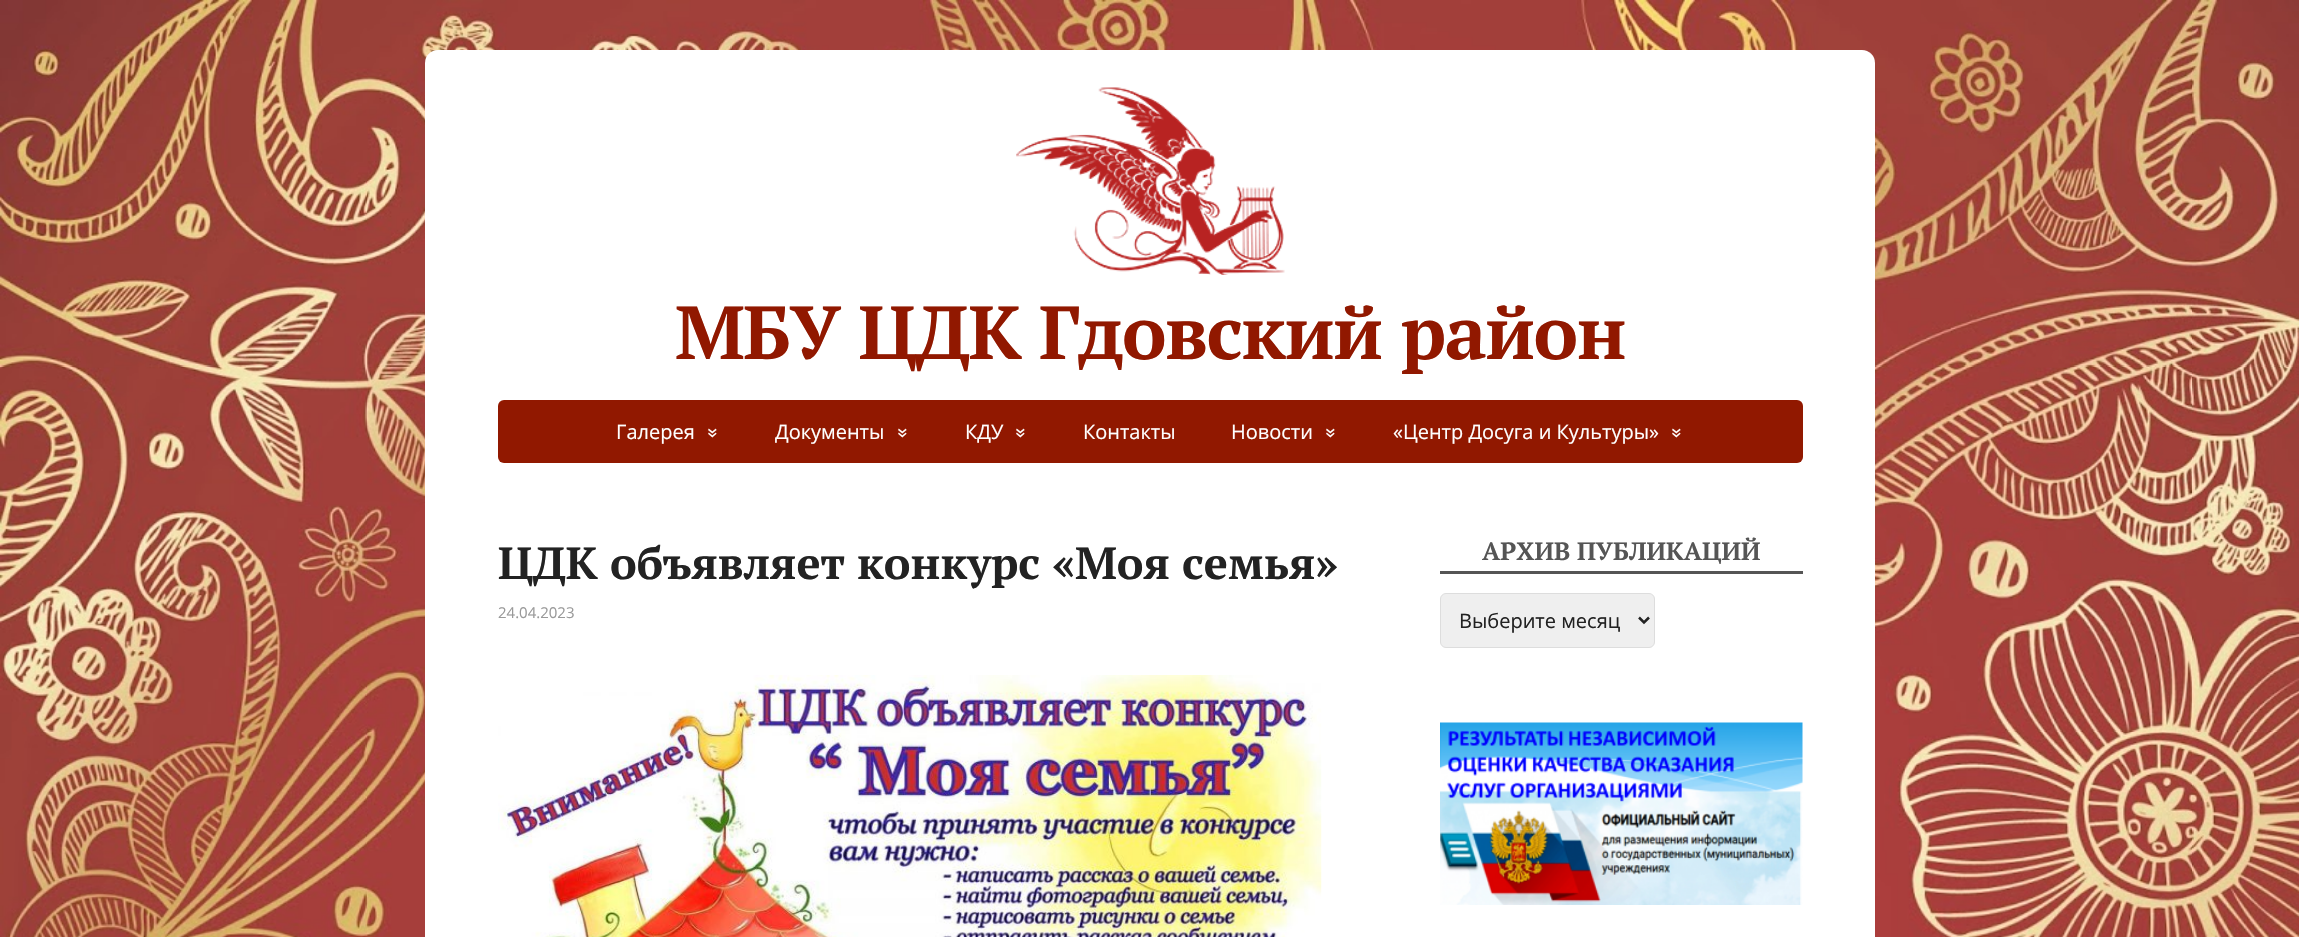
void draw(SkCanvas* canvas) {
    SkPaint paint;
    paint.setAntiAlias(true);
    auto face = [&](const char* family, int weight, float size, bool italic = false) {
        SkFontStyle style(weight, SkFontStyle::kNormal_Width,
            italic ? SkFontStyle::kItalic_Slant : SkFontStyle::kUpright_Slant);
        SkFont result(fontMgr->matchFamilyStyle(family, style), size);
        result.setSubpixel(true);
        return result;
    };
    auto write = [&](const char* s, float x, float y, const SkFont& font, SkColor color) {
        SkPaint ink(SkColor4f::FromColor(color));
        ink.setAntiAlias(true);
        canvas->drawString(s, x, y, font, ink);
    };
    auto writeSpaced = [&](const char* s, float x, float y, const SkFont& font, const SkPaint& ink, float letter, float word) {
        std::vector<SkGlyphID> glyphs(font.countText(s, strlen(s), SkTextEncoding::kUTF8));
        std::vector<float> xs(glyphs.size());
        font.textToGlyphs(s, strlen(s), SkTextEncoding::kUTF8, glyphs);
        font.getXPos(glyphs, xs, x);
        float extra = 0;
        for (size_t i = 0; i < glyphs.size(); i++) {
            xs[i] += extra;
            extra += letter + word * (glyphs[i] == font.unicharToGlyph(' '));
        }
        canvas->drawTextBlob(SkTextBlob::MakeFromPosHGlyphs(glyphs, xs, y, font), 0, 0, ink);
    };
    auto block = [&](float x, float y, float w, float h, SkColor color) {
        SkPaint ink(SkColor4f::FromColor(color));
        ink.setAntiAlias(true);
        canvas->drawRect(SkRect::MakeXYWH(x, y, w, h), ink);
    };
    auto card = [&](float x, float y, float w, float h, float radius, SkColor color) {
        SkPaint ink(SkColor4f::FromColor(color));
        ink.setAntiAlias(true);
        canvas->drawRoundRect(SkRect::MakeXYWH(x, y, w, h), radius, radius, ink);
    };
    auto paste = [&](const char* path, float x, float y, float w, float h) {
        auto image = SkImages::DeferredFromEncodedData(SkData::MakeFromFileName(path));
        canvas->drawImageRect(image, SkRect::MakeXYWH(x, y, w, h), SkSamplingOptions());
    };
    canvas->clear(SK_ColorWHITE);
    paste("pic1.png", 0, 0, 2299, 937);
    card(425, 50, 1450, 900, 13, SK_ColorWHITE);
    paste("pic2.png", 1016, 87, 269, 188);
    auto kFont1 = face("PT Serif", 700, 75);
    paint.setColor(SkColorSetRGB(145, 24, 0));
    writeSpaced("МБУ ЦДК Гдовский район", 675, 359, kFont1, paint, -1.5f, 0);
    card(498, 400, 1305, 63, 6, SkColorSetRGB(145, 24, 0));
    auto kFont2 = face("Open Sans", 400, 20);
    write("Галерея", 616, 439, kFont2, SK_ColorWHITE);
    canvas->save();
    canvas->rotate(90, 707, 428);
    write("»", 707, 428, kFont2, SK_ColorWHITE);
    canvas->restore();
    write("Документы", 775, 439, kFont2, SK_ColorWHITE);
    canvas->save();
    canvas->rotate(90, 897, 428);
    write("»", 897, 428, kFont2, SK_ColorWHITE);
    canvas->restore();
    write("КДУ", 965, 439, kFont2, SK_ColorWHITE);
    canvas->save();
    canvas->rotate(90, 1015, 428);
    write("»", 1015, 428, kFont2, SK_ColorWHITE);
    canvas->restore();
    write("Контакты", 1083, 439, kFont2, SK_ColorWHITE);
    write("Новости", 1231, 439, kFont2, SK_ColorWHITE);
    canvas->save();
    canvas->rotate(90, 1325, 428);
    write("»", 1325, 428, kFont2, SK_ColorWHITE);
    canvas->restore();
    write("«Центр Досуга и Культуры»", 1393, 439, kFont2, SK_ColorWHITE);
    canvas->save();
    canvas->rotate(90, 1671, 428);
    write("»", 1671, 428, kFont2, SK_ColorWHITE);
    canvas->restore();
    auto kFont3 = face("PT Serif", 700, 45);
    write("ЦДК объявляет конкурс «Моя семья»", 498, 579, kFont3, SkColorSetRGB(34, 34, 34));
    auto kFont4 = face("Open Sans", 400, 15);
    write("24.04.2023", 498, 618, kFont4, SkColorSetRGB(153, 153, 153));
    paste("pic3.png", 498, 675, 824, 262);
    block(1440, 571, 363, 3, SkColorSetRGB(85, 85, 85));
    auto kFont5 = face("PT Serif", 700, 25);
    write("АРХИВ ПУБЛИКАЦИЙ", 1482, 560, kFont5, SkColorSetRGB(85, 85, 85));
    paint.setColor(SkColorSetRGB(239, 239, 239));
    canvas->drawRoundRect(SkRect::MakeXYWH(1440.5f, 593.5f, 214, 54), 5.5f, 5.5f, paint);
    paint.setStyle(SkPaint::kStroke_Style);
    paint.setStrokeWidth(1);
    paint.setColor(SkColorSetRGB(221, 221, 221));
    canvas->drawRoundRect(SkRect::MakeXYWH(1440.5f, 593.5f, 214, 54), 5.5f, 5.5f, paint);
    paint.setStrokeWidth(2.5f);
    paint.setColor(SkColorSetRGB(34, 34, 34));
    canvas->drawPath(SkPathBuilder().moveTo(1639, 617.5f).lineTo(1644, 622.5f).lineTo(1649, 617.5f).detach(), paint);
    write("Выберите месяц", 1459, 628, kFont2, SkColorSetRGB(34, 34, 34));
    paste("pic4.png", 1440, 722, 363, 183);
}
